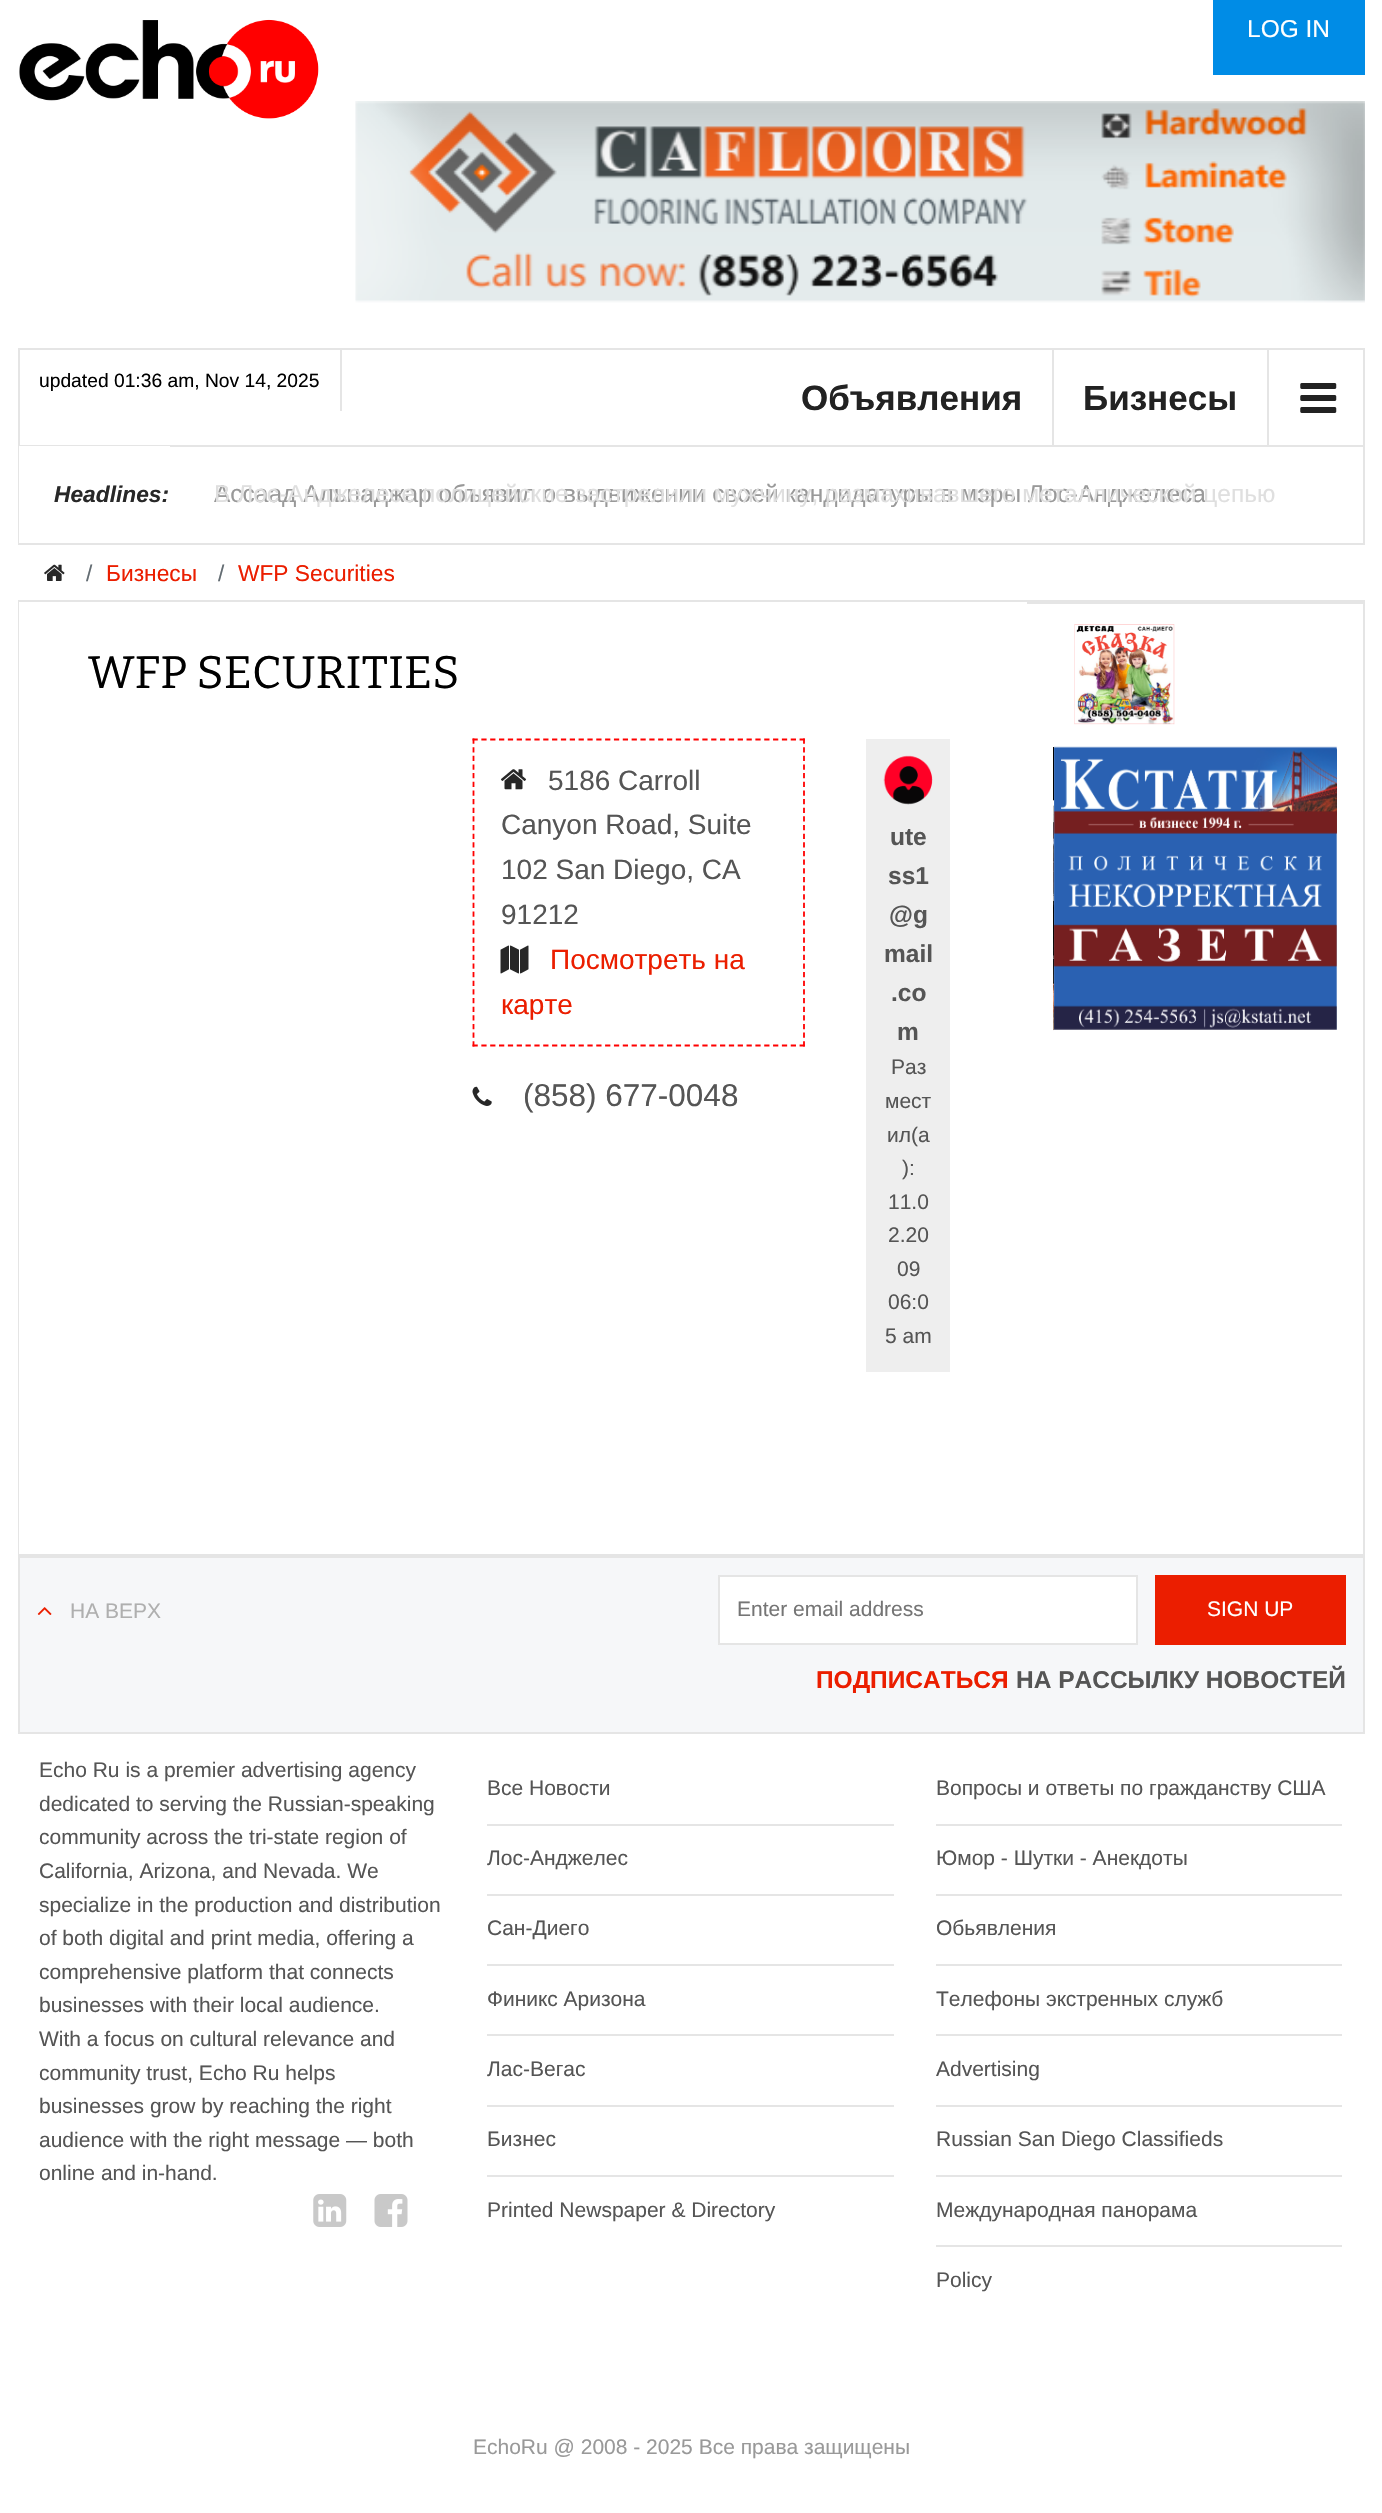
void draw(SkCanvas* canvas) {
    SkPaint paint;
    paint.setAntiAlias(true);
    auto face = [&](const char* family, int weight, float size, bool italic = false) {
        SkFontStyle style(weight, SkFontStyle::kNormal_Width,
            italic ? SkFontStyle::kItalic_Slant : SkFontStyle::kUpright_Slant);
        SkFont result(fontMgr->matchFamilyStyle(family, style), size);
        result.setSubpixel(true);
        return result;
    };
    auto write = [&](const char* s, float x, float y, const SkFont& font, SkColor color) {
        SkPaint ink(SkColor4f::FromColor(color));
        ink.setAntiAlias(true);
        canvas->drawString(s, x, y, font, ink);
    };
    auto block = [&](float x, float y, float w, float h, SkColor color) {
        SkPaint ink(SkColor4f::FromColor(color));
        ink.setAntiAlias(true);
        canvas->drawRect(SkRect::MakeXYWH(x, y, w, h), ink);
    };
    auto paste = [&](const char* path, float x, float y, float w, float h) {
        auto image = SkImages::DeferredFromEncodedData(SkData::MakeFromFileName(path));
        canvas->drawImageRect(image, SkRect::MakeXYWH(x, y, w, h), SkSamplingOptions());
    };
    canvas->clear(SK_ColorWHITE);
    block(18, 543, 1347, 2, SkColorSetRGB(229, 229, 229));
    paste("pic1.png", 19, 19, 300, 100);
    block(1213, 0, 152, 75, SkColorSetRGB(0, 140, 230));
    auto kFont1 = face("Liberation Sans", 400, 24.5f);
    write("LOG IN", 1247, 37, kFont1, SK_ColorWHITE);
    paste("pic2.png", 355, 101, 1010, 202);
    block(18, 445, 1347, 2, SkColorSetRGB(229, 229, 229));
    block(1363, 445, 2, 98, SkColorSetRGB(229, 229, 229));
    block(18, 445, 2, 98, SkColorSetRGB(229, 229, 229));
    block(340, 350, 2, 61, SkColorSetRGB(229, 229, 229));
    auto kFont2 = face("Liberation Sans", 400, 19.25f);
    write("updated 01:36 am, Nov 14, 2025", 39, 387, kFont2, SK_ColorBLACK);
    block(19, 446, 151, 97, SK_ColorWHITE);
    auto kFont3 = face("Liberation Sans", 700, 22.75f, true);
    write("Headlines:", 54, 502, kFont3, SkColorSetRGB(40, 40, 40));
    write("Ассаад Альнаджар объявил о выдвижении своей кандидатуры в мэры Лос-Анджелеса", 214, 502, kFont1, SkColorSetRGB(153, 153, 153));
    write("В Лос-Анджелесе полицейские застрелили мужчину, размахивавшего металлической цепью", 214, 502, kFont1, SkColorSetRGB(223, 223, 223));
    block(18, 348, 1347, 2, SkColorSetRGB(229, 229, 229));
    block(1363, 348, 2, 97, SkColorSetRGB(229, 229, 229));
    block(18, 348, 2, 97, SkColorSetRGB(229, 229, 229));
    block(1052, 350, 2, 95, SkColorSetRGB(229, 229, 229));
    auto kFont4 = face("Liberation Sans", 700, 35);
    write("Объявления", 801, 410, kFont4, SkColorSetRGB(34, 34, 34));
    block(1267, 350, 2, 95, SkColorSetRGB(229, 229, 229));
    write("Бизнесы", 1083, 410, kFont4, SkColorSetRGB(34, 34, 34));
    paste("pic3.png", 1300, 383, 37, 30);
    block(18, 600, 1347, 2, SkColorSetRGB(229, 229, 229));
    paste("pic4.png", 44, 564, 21, 17);
    auto kFont5 = face("Liberation Sans", 400, 22.75f);
    write("/", 86, 581, kFont5, SkColorSetRGB(99, 108, 114));
    write("Бизнесы", 106, 581, kFont5, SkColorSetRGB(235, 30, 0));
    write("/", 218, 581, kFont5, SkColorSetRGB(99, 108, 114));
    write("WFP Securities", 238, 581, kFont5, SkColorSetRGB(235, 30, 0));
    block(1363, 602, 2, 954, SkColorSetRGB(229, 229, 229));
    block(18, 1554, 1347, 2, SkColorSetRGB(229, 229, 229));
    block(18, 602, 2, 954, SkColorSetRGB(229, 229, 229));
    block(19, 602, 1, 952, SK_ColorWHITE);
    auto kFont6 = face("Bitter", 400, 45.5f);
    write("WFP SECURITIES", 88, 688, kFont6, SK_ColorBLACK);
    paint.setStyle(SkPaint::kStroke_Style);
    paint.setStrokeWidth(1.8f);
    paint.setColor(SkColorSetRGB(255, 0, 0));
    paint.setPathEffect(SkDashPathEffect::Make({{5.25f, 3.59f}}, 0));
    canvas->drawPath(SkPathBuilder().moveTo(472.5f, 739.5f).lineTo(805, 739.5f).detach(), paint);
    paint.setPathEffect(nullptr);
    paint.setPathEffect(SkDashPathEffect::Make({{5.25f, 3.4f}}, 0));
    canvas->drawPath(SkPathBuilder().moveTo(804, 738.5f).lineTo(804, 1046.5f).detach(), paint);
    paint.setPathEffect(nullptr);
    paint.setPathEffect(SkDashPathEffect::Make({{5.25f, 3.59f}}, 0));
    canvas->drawPath(SkPathBuilder().moveTo(472.5f, 1045.5f).lineTo(805, 1045.5f).detach(), paint);
    paint.setPathEffect(nullptr);
    paint.setPathEffect(SkDashPathEffect::Make({{5.25f, 3.4f}}, 0));
    canvas->drawPath(SkPathBuilder().moveTo(473.5f, 738.5f).lineTo(473.5f, 1046.5f).detach(), paint);
    paint.setPathEffect(nullptr);
    paste("pic5.png", 500, 769, 27, 21);
    auto kFont7 = face("Liberation Sans", 400, 28);
    write("5186 Carroll", 548, 790, kFont7, SkColorSetRGB(85, 85, 85));
    write("Canyon Road, Suite", 501, 834, kFont7, SkColorSetRGB(85, 85, 85));
    write("102 San Diego, CA", 501, 879, kFont7, SkColorSetRGB(85, 85, 85));
    write("91212", 501, 924, kFont7, SkColorSetRGB(85, 85, 85));
    paste("pic6.png", 500, 945, 29, 29);
    write("Посмотреть на", 550, 969, kFont7, SkColorSetRGB(235, 30, 0));
    write("карте", 501, 1014, kFont7, SkColorSetRGB(235, 30, 0));
    paste("pic7.png", 472, 1086, 20, 20);
    auto kFont8 = face("Liberation Sans", 400, 31.5f);
    write("(858) 677-0048", 523, 1106, kFont8, SkColorSetRGB(85, 85, 85));
    block(866, 739, 84, 633, SkColorSetRGB(238, 238, 238));
    paste("pic8.png", 883, 755, 50, 50);
    auto kFont9 = face("Liberation Sans", 700, 24.5f);
    write("ute", 890, 845, kFont9, SkColorSetRGB(85, 85, 85));
    write("ss1", 888, 884, kFont9, SkColorSetRGB(85, 85, 85));
    write("@g", 889, 923, kFont9, SkColorSetRGB(85, 85, 85));
    write("mail", 884, 962, kFont9, SkColorSetRGB(85, 85, 85));
    write(".co", 891, 1001, kFont9, SkColorSetRGB(85, 85, 85));
    write("m", 897, 1040, kFont9, SkColorSetRGB(85, 85, 85));
    auto kFont10 = face("Liberation Sans", 400, 21);
    write("Раз", 891, 1074, kFont10, SkColorSetRGB(85, 85, 85));
    write("мест", 885, 1108, kFont10, SkColorSetRGB(85, 85, 85));
    write("ил(a", 887, 1142, kFont10, SkColorSetRGB(85, 85, 85));
    write("):", 902, 1175, kFont10, SkColorSetRGB(85, 85, 85));
    write("11.0", 888, 1209, kFont10, SkColorSetRGB(85, 85, 85));
    write("2.20", 888, 1242, kFont10, SkColorSetRGB(85, 85, 85));
    write("09", 897, 1276, kFont10, SkColorSetRGB(85, 85, 85));
    write("06:0", 888, 1309, kFont10, SkColorSetRGB(85, 85, 85));
    write("5 am", 885, 1343, kFont10, SkColorSetRGB(85, 85, 85));
    block(1027, 602, 336, 2, SkColorSetRGB(229, 229, 229));
    paste("pic9.png", 1074, 624, 101, 101);
    paste("pic10.png", 1053, 747, 1, 284);
    paste("pic11.png", 1054, 746, 283, 284);
    paint.setStyle(SkPaint::kFill_Style);
    paint.setColor(SkColorSetRGB(246, 247, 249));
    canvas->drawRect(SkRect::MakeXYWH(19, 1557, 1345, 176), paint);
    paint.setStyle(SkPaint::kStroke_Style);
    paint.setStrokeWidth(2);
    paint.setColor(SkColorSetRGB(229, 229, 229));
    canvas->drawRect(SkRect::MakeXYWH(19, 1557, 1345, 176), paint);
    paste("pic12.png", 37, 1607, 15, 8);
    write("НА ВЕРХ", 70, 1618, kFont10, SkColorSetRGB(175, 175, 175));
    paint.setStyle(SkPaint::kFill_Style);
    paint.setColor(SK_ColorWHITE);
    canvas->drawRect(SkRect::MakeXYWH(719, 1576, 418, 68), paint);
    paint.setStyle(SkPaint::kStroke_Style);
    paint.setColor(SkColorSetRGB(229, 229, 229));
    canvas->drawRect(SkRect::MakeXYWH(719, 1576, 418, 68), paint);
    write("Enter email address", 737, 1616, kFont10, SkColorSetRGB(117, 117, 117));
    block(1155, 1575, 191, 70, SkColorSetRGB(235, 30, 0));
    write("SIGN UP", 1207, 1616, kFont10, SK_ColorWHITE);
    write("ПОДПИСАТЬСЯ", 816, 1688, kFont9, SkColorSetRGB(235, 30, 0));
    write("НА РАССЫЛКУ НОВОСТЕЙ", 1016, 1688, kFont9, SkColorSetRGB(85, 85, 85));
    write("Echo Ru is a premier advertising agency", 39, 1777, kFont10, SkColorSetRGB(85, 85, 85));
    write("dedicated to serving the Russian-speaking", 39, 1811, kFont10, SkColorSetRGB(85, 85, 85));
    write("community across the tri-state region of", 39, 1844, kFont10, SkColorSetRGB(85, 85, 85));
    write("California, Arizona, and Nevada. We", 39, 1878, kFont10, SkColorSetRGB(85, 85, 85));
    write("specialize in the production and distribution", 39, 1912, kFont10, SkColorSetRGB(85, 85, 85));
    write("of both digital and print media, offering a", 39, 1945, kFont10, SkColorSetRGB(85, 85, 85));
    write("comprehensive platform that connects", 39, 1979, kFont10, SkColorSetRGB(85, 85, 85));
    write("businesses with their local audience.", 39, 2012, kFont10, SkColorSetRGB(85, 85, 85));
    write("With a focus on cultural relevance and", 39, 2046, kFont10, SkColorSetRGB(85, 85, 85));
    write("community trust, Echo Ru helps", 39, 2080, kFont10, SkColorSetRGB(85, 85, 85));
    write("businesses grow by reaching the right", 39, 2113, kFont10, SkColorSetRGB(85, 85, 85));
    write("audience with the right message — both", 39, 2147, kFont10, SkColorSetRGB(85, 85, 85));
    write("online and in-hand.", 39, 2180, kFont10, SkColorSetRGB(85, 85, 85));
    paste("pic13.png", 313, 2194, 34, 33);
    paste("pic14.png", 374, 2194, 34, 33);
    block(487, 1824, 407, 2, SkColorSetRGB(229, 229, 229));
    write("Все Новости", 487, 1795, kFont10, SkColorSetRGB(85, 85, 85));
    block(487, 1894, 407, 2, SkColorSetRGB(229, 229, 229));
    write("Лос-Анджелес", 487, 1865, kFont10, SkColorSetRGB(85, 85, 85));
    block(487, 1964, 407, 2, SkColorSetRGB(229, 229, 229));
    write("Сан-Диего", 487, 1935, kFont10, SkColorSetRGB(85, 85, 85));
    block(487, 2034, 407, 2, SkColorSetRGB(229, 229, 229));
    write("Финикс Аризона", 487, 2006, kFont10, SkColorSetRGB(85, 85, 85));
    block(487, 2105, 407, 2, SkColorSetRGB(229, 229, 229));
    write("Лас-Вегас", 487, 2076, kFont10, SkColorSetRGB(85, 85, 85));
    block(487, 2175, 407, 2, SkColorSetRGB(229, 229, 229));
    write("Бизнес", 487, 2146, kFont10, SkColorSetRGB(85, 85, 85));
    write("Printed Newspaper & Directory", 487, 2217, kFont10, SkColorSetRGB(85, 85, 85));
    block(936, 1824, 406, 2, SkColorSetRGB(229, 229, 229));
    write("Вопросы и ответы по гражданству США", 936, 1795, kFont10, SkColorSetRGB(85, 85, 85));
    block(936, 1894, 406, 2, SkColorSetRGB(229, 229, 229));
    write("Юмор - Шутки - Анекдоты", 936, 1865, kFont10, SkColorSetRGB(85, 85, 85));
    block(936, 1964, 406, 2, SkColorSetRGB(229, 229, 229));
    write("Обьявления", 936, 1935, kFont10, SkColorSetRGB(85, 85, 85));
    block(936, 2034, 406, 2, SkColorSetRGB(229, 229, 229));
    write("Телефоны экстренных служб", 936, 2006, kFont10, SkColorSetRGB(85, 85, 85));
    block(936, 2105, 406, 2, SkColorSetRGB(229, 229, 229));
    write("Advertising", 936, 2076, kFont10, SkColorSetRGB(85, 85, 85));
    block(936, 2175, 406, 2, SkColorSetRGB(229, 229, 229));
    write("Russian San Diego Classifieds", 936, 2146, kFont10, SkColorSetRGB(85, 85, 85));
    block(936, 2245, 406, 2, SkColorSetRGB(229, 229, 229));
    write("Международная панорама", 936, 2217, kFont10, SkColorSetRGB(85, 85, 85));
    write("Policy", 936, 2287, kFont10, SkColorSetRGB(85, 85, 85));
    write("EchoRu @ 2008 - 2025 Все права защищены", 473, 2454, kFont10, SkColorSetRGB(153, 153, 153));
}
